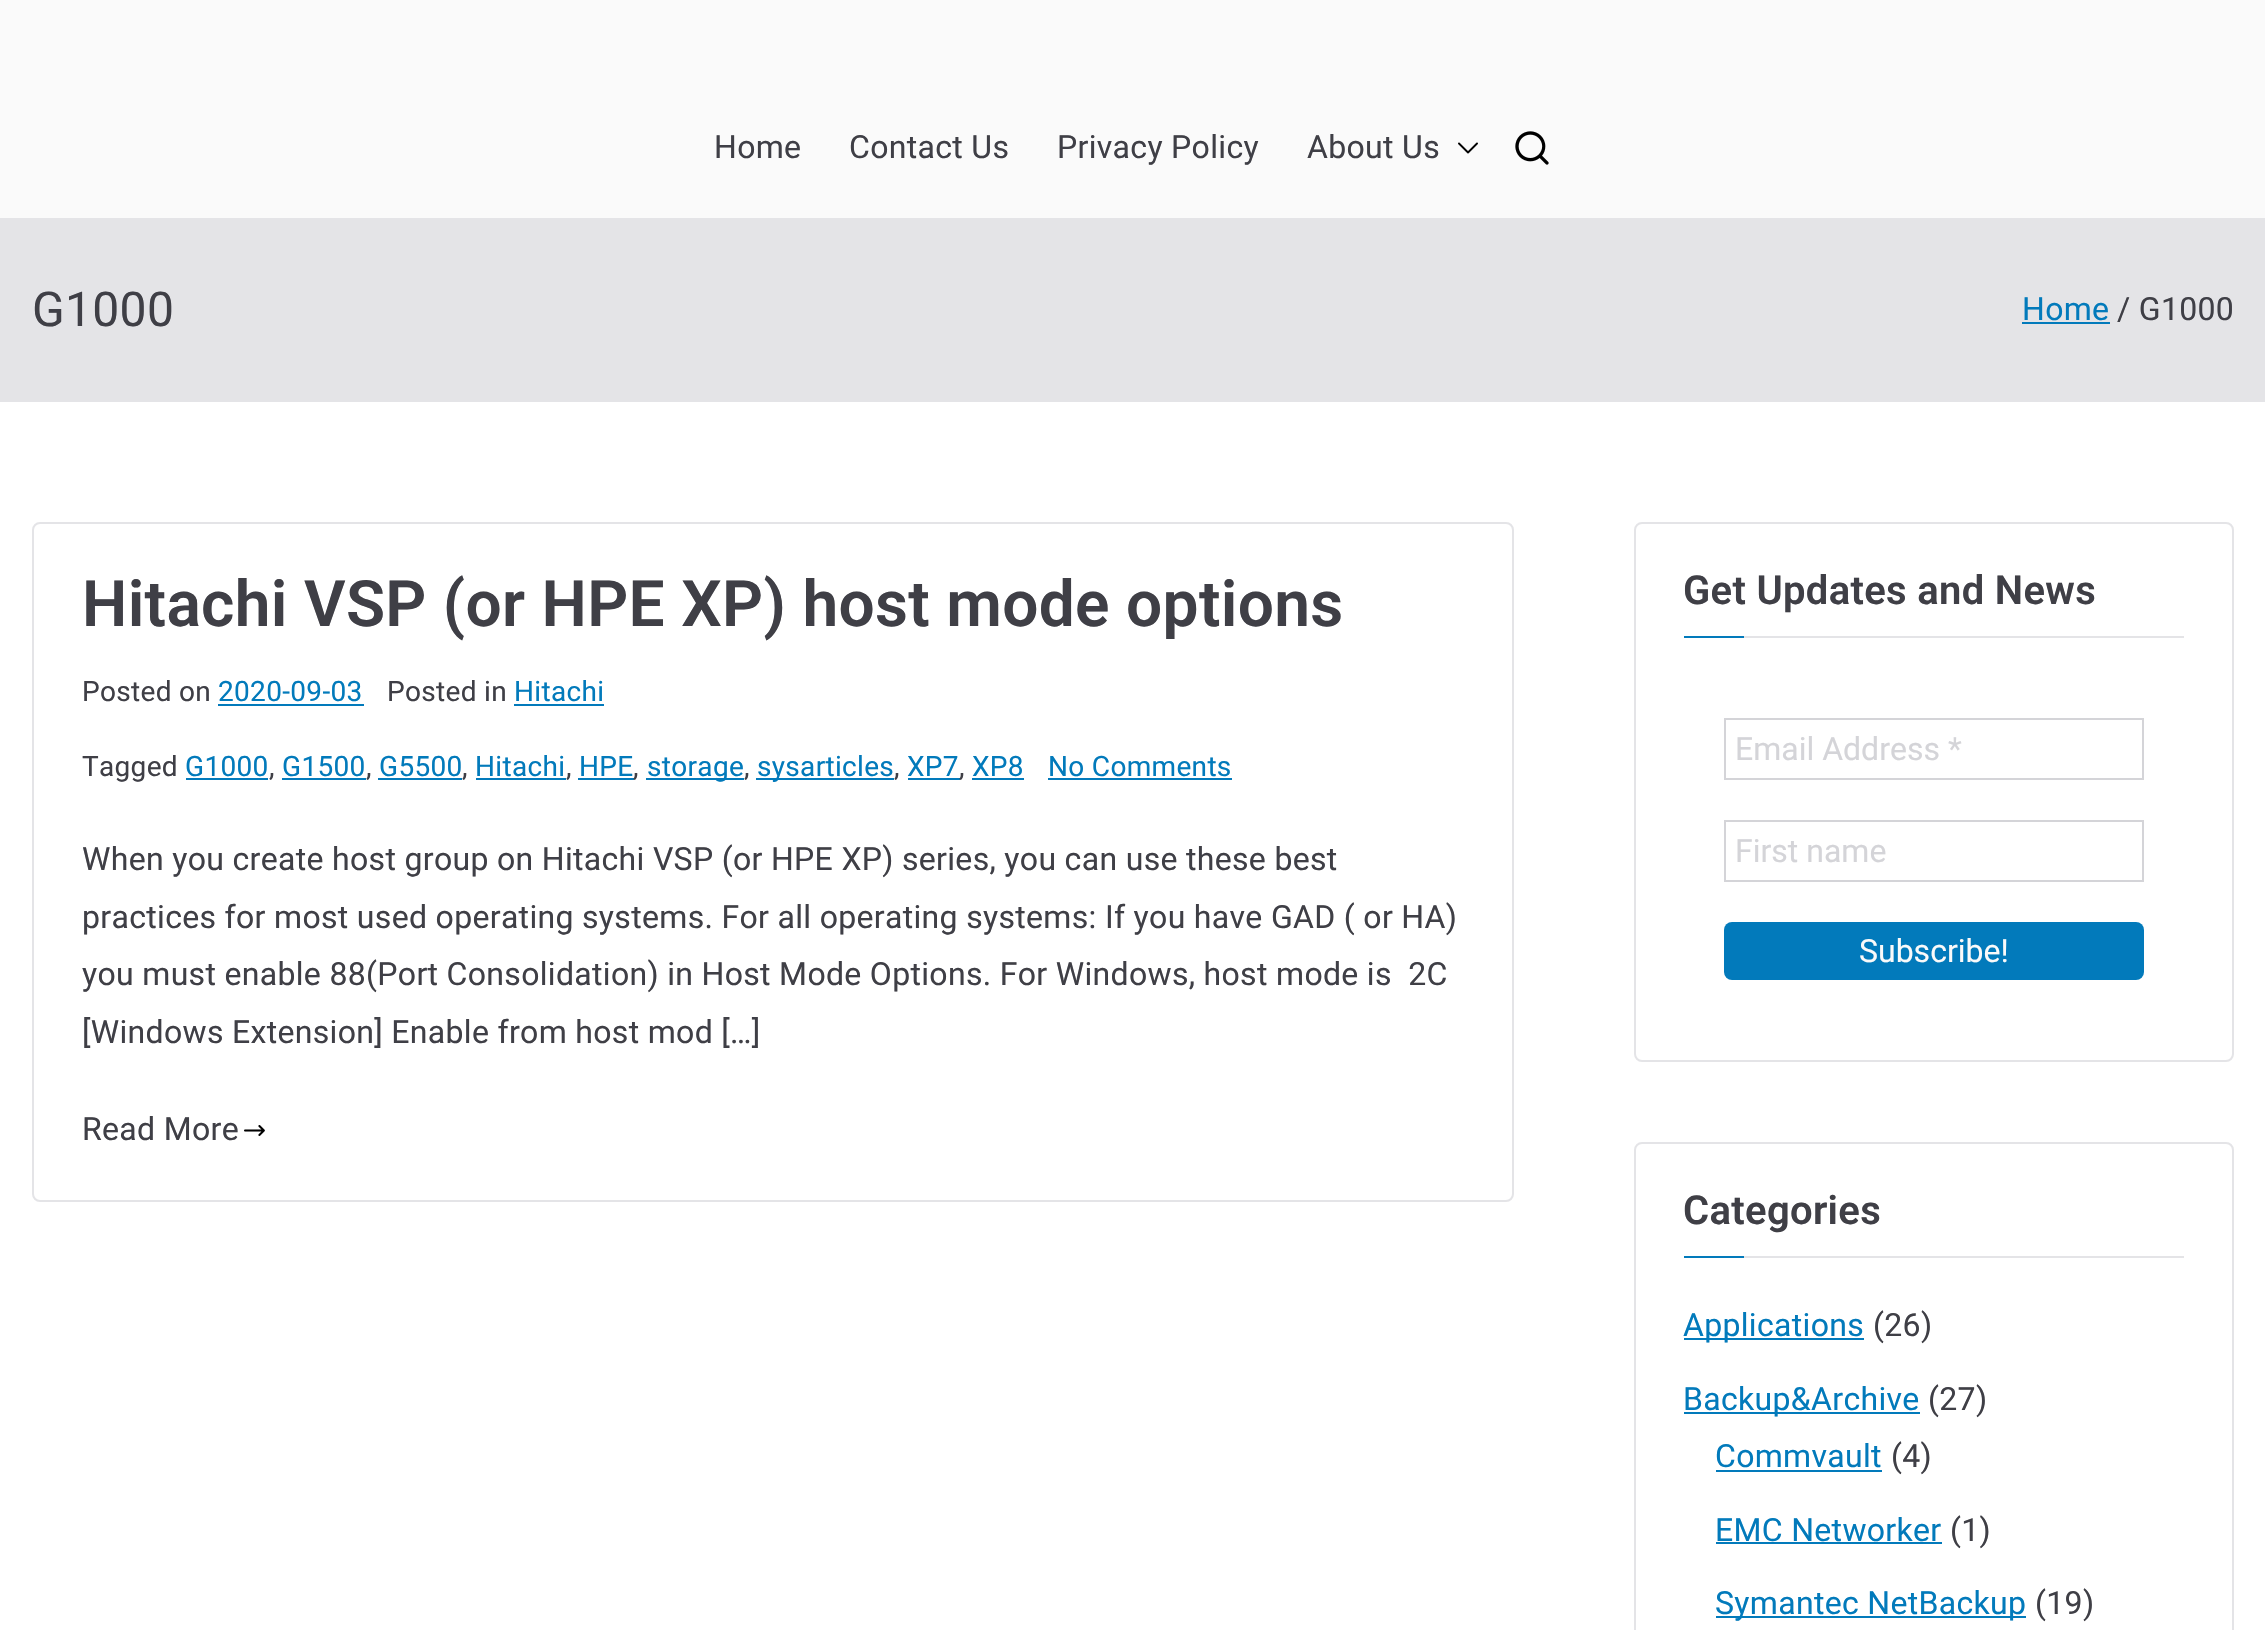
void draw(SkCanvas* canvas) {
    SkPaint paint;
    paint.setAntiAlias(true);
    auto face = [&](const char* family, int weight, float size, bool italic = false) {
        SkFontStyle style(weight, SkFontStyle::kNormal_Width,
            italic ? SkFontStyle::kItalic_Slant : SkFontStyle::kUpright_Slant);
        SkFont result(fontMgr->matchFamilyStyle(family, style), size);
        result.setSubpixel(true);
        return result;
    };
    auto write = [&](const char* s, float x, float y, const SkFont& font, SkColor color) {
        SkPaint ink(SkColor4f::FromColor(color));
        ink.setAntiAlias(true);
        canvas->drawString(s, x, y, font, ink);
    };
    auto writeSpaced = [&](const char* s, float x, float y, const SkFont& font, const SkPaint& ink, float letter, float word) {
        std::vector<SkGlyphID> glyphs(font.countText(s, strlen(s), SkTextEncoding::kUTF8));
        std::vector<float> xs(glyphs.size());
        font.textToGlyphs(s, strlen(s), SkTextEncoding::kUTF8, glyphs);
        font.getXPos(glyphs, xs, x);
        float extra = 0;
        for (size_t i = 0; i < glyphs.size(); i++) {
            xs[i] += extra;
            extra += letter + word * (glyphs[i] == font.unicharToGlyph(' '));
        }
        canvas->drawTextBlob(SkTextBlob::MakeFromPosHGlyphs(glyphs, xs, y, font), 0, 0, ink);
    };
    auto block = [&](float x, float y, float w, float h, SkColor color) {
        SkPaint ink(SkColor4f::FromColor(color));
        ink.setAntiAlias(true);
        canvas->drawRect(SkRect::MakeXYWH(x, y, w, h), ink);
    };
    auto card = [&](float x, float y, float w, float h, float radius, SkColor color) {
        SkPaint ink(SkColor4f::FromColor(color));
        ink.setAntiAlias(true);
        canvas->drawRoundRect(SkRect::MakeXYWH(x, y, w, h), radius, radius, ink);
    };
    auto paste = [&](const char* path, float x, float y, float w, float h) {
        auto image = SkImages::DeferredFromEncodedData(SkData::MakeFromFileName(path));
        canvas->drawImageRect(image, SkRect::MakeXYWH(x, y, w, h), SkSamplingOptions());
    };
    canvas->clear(SkColorSetRGB(250, 250, 250));
    block(0, 218, 2265, 184, SkColorSetRGB(228, 228, 231));
    auto kFont1 = face("Roboto", 400, 32);
    paint.setColor(SkColorSetRGB(63, 63, 70));
    writeSpaced("Home", 714, 158, kFont1, paint, 0.32f, 0);
    writeSpaced("Contact Us", 849, 158, kFont1, paint, 0.32f, 0);
    writeSpaced("Privacy Policy", 1057, 158, kFont1, paint, 0.32f, 0);
    writeSpaced("About Us", 1307, 158, kFont1, paint, 0.32f, 0);
    paste("pic1.png", 1458, 142, 20, 12);
    paste("pic2.png", 1515, 131, 34, 34);
    auto kFont2 = face("Roboto", 400, 48);
    writeSpaced("G1000", 32, 326, kFont2, paint, 0.32f, 0);
    paint.setColor(SkColorSetRGB(2, 122, 187));
    writeSpaced("Home", 2022, 320, kFont1, paint, 0.32f, 0);
    block(2022, 322, 88, 2, SkColorSetRGB(2, 122, 187));
    paint.setColor(SkColorSetRGB(63, 63, 70));
    writeSpaced("/ G1000", 2117, 320, kFont1, paint, 0.32f, 0);
    block(0, 402, 2265, 1228, SK_ColorWHITE);
    paint.setStyle(SkPaint::kStroke_Style);
    paint.setStrokeWidth(2);
    paint.setColor(SkColorSetRGB(228, 228, 231));
    canvas->drawRoundRect(SkRect::MakeXYWH(33, 523, 1480, 678), 7, 7, paint);
    auto kFont3 = face("Roboto", 600, 64);
    paint.setStyle(SkPaint::kFill_Style);
    paint.setColor(SkColorSetRGB(63, 63, 70));
    writeSpaced("Hitachi VSP (or HPE XP) host mode options", 82, 626, kFont3, paint, 0.32f, 0);
    auto kFont4 = face("Roboto", 400, 28);
    writeSpaced("Posted on", 82, 701, kFont4, paint, 0.32f, 0);
    paint.setColor(SkColorSetRGB(2, 122, 187));
    writeSpaced("2020-09-03", 218, 701, kFont4, paint, 0.32f, 0);
    block(218, 704, 146, 2, SkColorSetRGB(2, 122, 187));
    paint.setColor(SkColorSetRGB(63, 63, 70));
    writeSpaced("Posted in", 387, 701, kFont4, paint, 0.32f, 0);
    paint.setColor(SkColorSetRGB(2, 122, 187));
    writeSpaced("Hitachi", 514, 701, kFont4, paint, 0.32f, 0);
    block(514, 704, 90, 2, SkColorSetRGB(2, 122, 187));
    paint.setColor(SkColorSetRGB(63, 63, 70));
    writeSpaced("Tagged", 82, 776, kFont4, paint, 0.32f, 0);
    paint.setColor(SkColorSetRGB(2, 122, 187));
    writeSpaced("G1000", 185, 776, kFont4, paint, 0.32f, 0);
    block(186, 778, 82, 2, SkColorSetRGB(2, 122, 187));
    paint.setColor(SkColorSetRGB(63, 63, 70));
    writeSpaced(",", 269, 776, kFont4, paint, 0.32f, 0);
    paint.setColor(SkColorSetRGB(2, 122, 187));
    writeSpaced("G1500", 282, 776, kFont4, paint, 0.32f, 0);
    block(282, 778, 84, 2, SkColorSetRGB(2, 122, 187));
    paint.setColor(SkColorSetRGB(63, 63, 70));
    writeSpaced(",", 366, 776, kFont4, paint, 0.32f, 0);
    paint.setColor(SkColorSetRGB(2, 122, 187));
    writeSpaced("G5500", 379, 776, kFont4, paint, 0.32f, 0);
    block(378, 778, 84, 2, SkColorSetRGB(2, 122, 187));
    paint.setColor(SkColorSetRGB(63, 63, 70));
    writeSpaced(",", 462, 776, kFont4, paint, 0.32f, 0);
    paint.setColor(SkColorSetRGB(2, 122, 187));
    writeSpaced("Hitachi", 475, 776, kFont4, paint, 0.32f, 0);
    block(476, 778, 90, 2, SkColorSetRGB(2, 122, 187));
    paint.setColor(SkColorSetRGB(63, 63, 70));
    writeSpaced(",", 566, 776, kFont4, paint, 0.32f, 0);
    paint.setColor(SkColorSetRGB(2, 122, 187));
    writeSpaced("HPE", 579, 776, kFont4, paint, 0.32f, 0);
    block(578, 778, 56, 2, SkColorSetRGB(2, 122, 187));
    paint.setColor(SkColorSetRGB(63, 63, 70));
    writeSpaced(",", 633, 776, kFont4, paint, 0.32f, 0);
    block(646, 778, 98, 2, SkColorSetRGB(2, 122, 187));
    paint.setColor(SkColorSetRGB(2, 122, 187));
    writeSpaced("storage", 647, 776, kFont4, paint, 0.32f, 0);
    paint.setColor(SkColorSetRGB(63, 63, 70));
    writeSpaced(",", 744, 776, kFont4, paint, 0.32f, 0);
    block(756, 778, 138, 2, SkColorSetRGB(2, 122, 187));
    paint.setColor(SkColorSetRGB(2, 122, 187));
    writeSpaced("sysarticles", 757, 776, kFont4, paint, 0.32f, 0);
    paint.setColor(SkColorSetRGB(63, 63, 70));
    writeSpaced(",", 894, 776, kFont4, paint, 0.32f, 0);
    paint.setColor(SkColorSetRGB(2, 122, 187));
    writeSpaced("XP7", 907, 776, kFont4, paint, 0.32f, 0);
    block(908, 778, 52, 2, SkColorSetRGB(2, 122, 187));
    paint.setColor(SkColorSetRGB(63, 63, 70));
    writeSpaced(",", 959, 776, kFont4, paint, 0.32f, 0);
    paint.setColor(SkColorSetRGB(2, 122, 187));
    writeSpaced("XP8", 972, 776, kFont4, paint, 0.32f, 0);
    block(972, 778, 52, 2, SkColorSetRGB(2, 122, 187));
    writeSpaced("No Comments", 1048, 776, kFont4, paint, 0.32f, 0);
    block(1048, 778, 184, 2, SkColorSetRGB(2, 122, 187));
    paint.setColor(SkColorSetRGB(63, 63, 70));
    writeSpaced("When you create host group on Hitachi VSP (or HPE XP) series, you can use these best", 82, 870, kFont1, paint, 0.32f, 0);
    writeSpaced("practices for most used operating systems. For all operating systems: If you have GAD ( or HA)", 82, 928, kFont1, paint, 0.32f, 0);
    writeSpaced("you must enable 88(Port Consolidation) in Host Mode Options. For Windows, host mode is  2C", 82, 985, kFont1, paint, 0.32f, 0);
    writeSpaced("[Windows Extension] Enable from host mod […]", 82, 1043, kFont1, paint, 0.32f, 0);
    writeSpaced("Read More", 82, 1140, kFont1, paint, 0.32f, 0);
    paste("pic3.png", 244, 1125, 21, 11);
    paint.setStyle(SkPaint::kStroke_Style);
    paint.setColor(SkColorSetRGB(228, 228, 231));
    canvas->drawRoundRect(SkRect::MakeXYWH(1635, 523, 598, 538), 7, 7, paint);
    block(1744, 636, 440, 2, SkColorSetRGB(228, 228, 231));
    auto kFont5 = face("Roboto", 600, 40);
    paint.setStyle(SkPaint::kFill_Style);
    paint.setColor(SkColorSetRGB(63, 63, 70));
    writeSpaced("Get Updates and News", 1683, 604, kFont5, paint, 0.32f, 0);
    block(1684, 636, 60, 2, SkColorSetRGB(2, 122, 187));
    paint.setStyle(SkPaint::kStroke_Style);
    paint.setColor(SkColorSetRGB(212, 212, 216));
    canvas->drawRect(SkRect::MakeXYWH(1725, 719, 418, 60), paint);
    write("Email Address *", 1735, 760, kFont1, SkColorSetRGB(212, 212, 216));
    canvas->drawRect(SkRect::MakeXYWH(1725, 821, 418, 60), paint);
    write("First name", 1735, 862, kFont1, SkColorSetRGB(212, 212, 216));
    card(1724, 922, 420, 58, 8, SkColorSetRGB(2, 122, 187));
    write("Subscribe!", 1859, 962, kFont1, SkColorSetRGB(250, 250, 250));
    paint.setColor(SkColorSetRGB(228, 228, 231));
    canvas->drawRoundRect(SkRect::MakeXYWH(1635, 1143, 598, 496), 7, 7, paint);
    block(1744, 1256, 440, 2, SkColorSetRGB(228, 228, 231));
    paint.setStyle(SkPaint::kFill_Style);
    paint.setColor(SkColorSetRGB(63, 63, 70));
    writeSpaced("Categories", 1683, 1224, kFont5, paint, 0.32f, 0);
    block(1684, 1256, 60, 2, SkColorSetRGB(2, 122, 187));
    block(1684, 1338, 180, 2, SkColorSetRGB(2, 122, 187));
    paint.setColor(SkColorSetRGB(2, 122, 187));
    writeSpaced("Applications", 1683, 1336, kFont1, paint, 0.32f, 0);
    paint.setColor(SkColorSetRGB(63, 63, 70));
    writeSpaced("(26)", 1873, 1336, kFont1, paint, 0.32f, 0);
    block(1684, 1412, 236, 2, SkColorSetRGB(2, 122, 187));
    paint.setColor(SkColorSetRGB(2, 122, 187));
    writeSpaced("Backup&Archive", 1683, 1410, kFont1, paint, 0.32f, 0);
    paint.setColor(SkColorSetRGB(63, 63, 70));
    writeSpaced("(27)", 1928, 1410, kFont1, paint, 0.32f, 0);
    paint.setColor(SkColorSetRGB(2, 122, 187));
    writeSpaced("Commvault", 1715, 1467, kFont1, paint, 0.32f, 0);
    block(1716, 1470, 166, 2, SkColorSetRGB(2, 122, 187));
    paint.setColor(SkColorSetRGB(63, 63, 70));
    writeSpaced("(4)", 1891, 1467, kFont1, paint, 0.32f, 0);
    paint.setColor(SkColorSetRGB(2, 122, 187));
    writeSpaced("EMC Networker", 1715, 1541, kFont1, paint, 0.32f, 0);
    block(1716, 1542, 226, 2, SkColorSetRGB(2, 122, 187));
    paint.setColor(SkColorSetRGB(63, 63, 70));
    writeSpaced("(1)", 1950, 1541, kFont1, paint, 0.32f, 0);
    block(1716, 1616, 310, 2, SkColorSetRGB(2, 122, 187));
    paint.setColor(SkColorSetRGB(2, 122, 187));
    writeSpaced("Symantec NetBackup", 1715, 1614, kFont1, paint, 0.32f, 0);
    paint.setColor(SkColorSetRGB(63, 63, 70));
    writeSpaced("(19)", 2035, 1614, kFont1, paint, 0.32f, 0);
}
